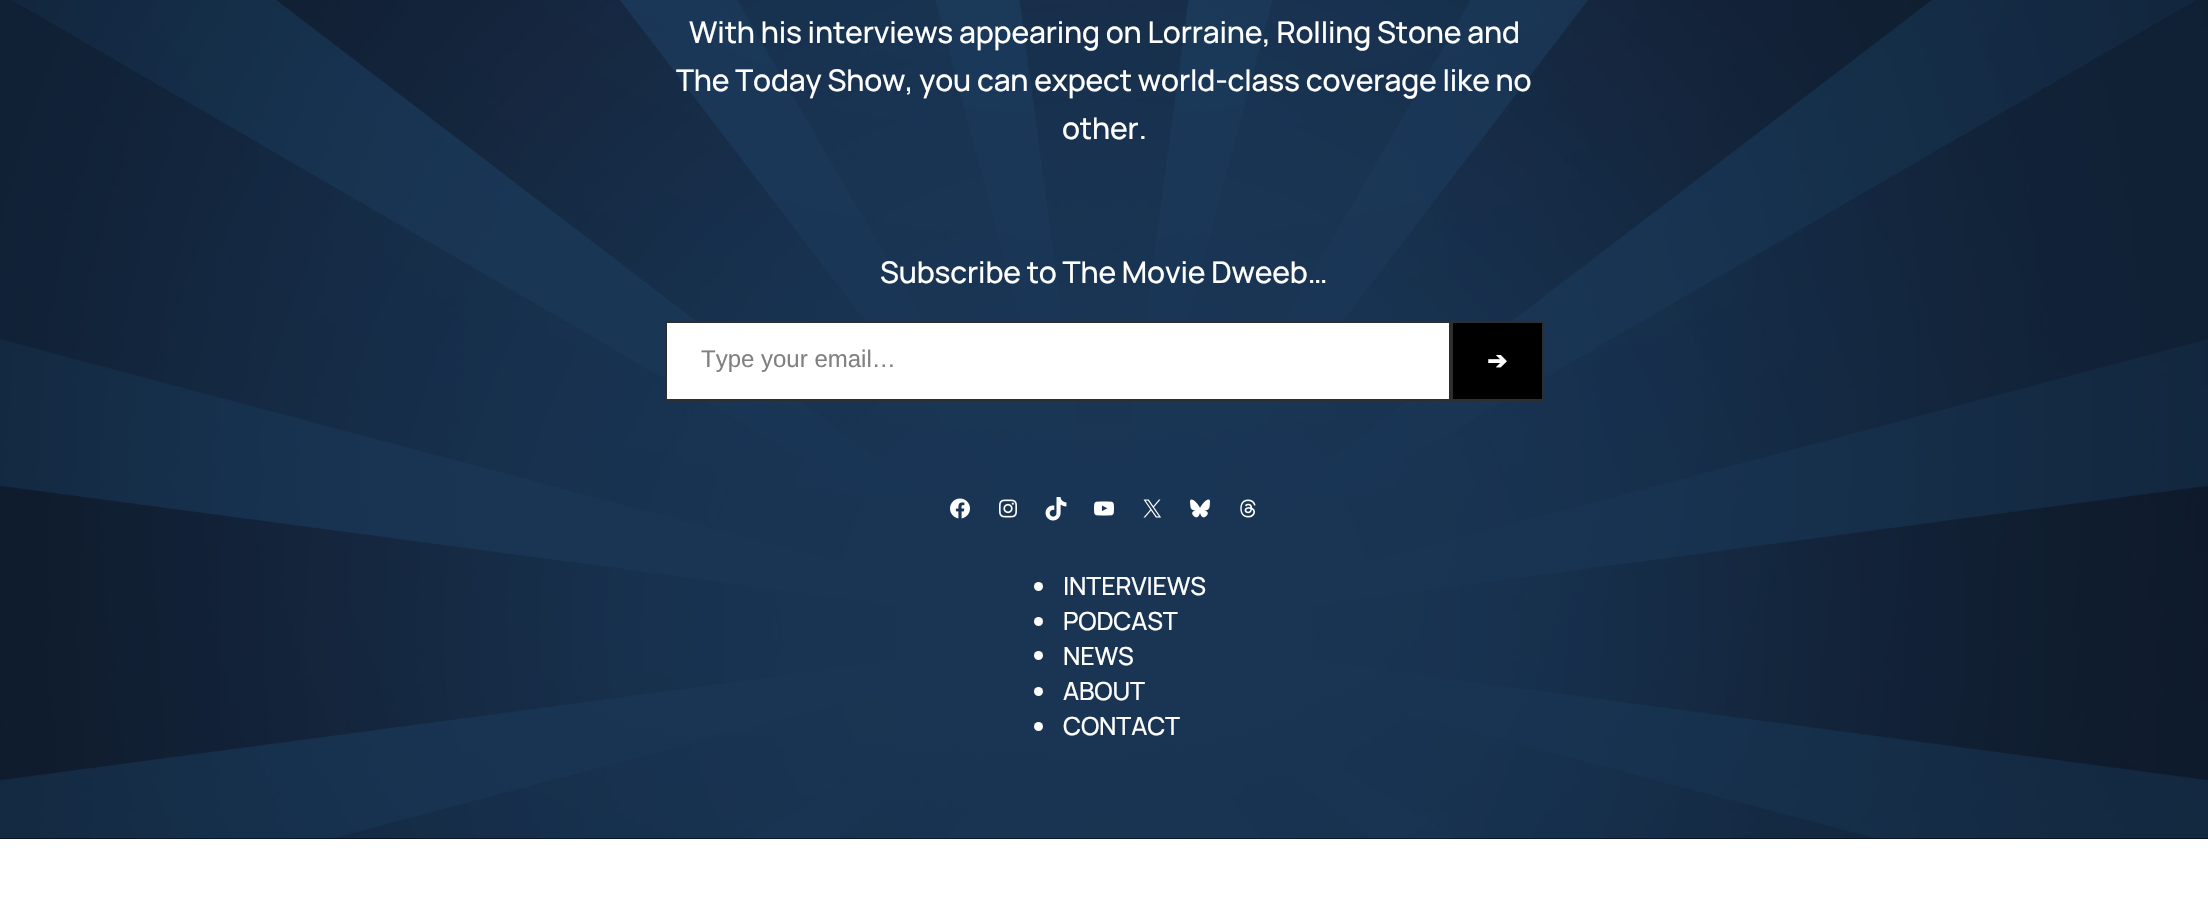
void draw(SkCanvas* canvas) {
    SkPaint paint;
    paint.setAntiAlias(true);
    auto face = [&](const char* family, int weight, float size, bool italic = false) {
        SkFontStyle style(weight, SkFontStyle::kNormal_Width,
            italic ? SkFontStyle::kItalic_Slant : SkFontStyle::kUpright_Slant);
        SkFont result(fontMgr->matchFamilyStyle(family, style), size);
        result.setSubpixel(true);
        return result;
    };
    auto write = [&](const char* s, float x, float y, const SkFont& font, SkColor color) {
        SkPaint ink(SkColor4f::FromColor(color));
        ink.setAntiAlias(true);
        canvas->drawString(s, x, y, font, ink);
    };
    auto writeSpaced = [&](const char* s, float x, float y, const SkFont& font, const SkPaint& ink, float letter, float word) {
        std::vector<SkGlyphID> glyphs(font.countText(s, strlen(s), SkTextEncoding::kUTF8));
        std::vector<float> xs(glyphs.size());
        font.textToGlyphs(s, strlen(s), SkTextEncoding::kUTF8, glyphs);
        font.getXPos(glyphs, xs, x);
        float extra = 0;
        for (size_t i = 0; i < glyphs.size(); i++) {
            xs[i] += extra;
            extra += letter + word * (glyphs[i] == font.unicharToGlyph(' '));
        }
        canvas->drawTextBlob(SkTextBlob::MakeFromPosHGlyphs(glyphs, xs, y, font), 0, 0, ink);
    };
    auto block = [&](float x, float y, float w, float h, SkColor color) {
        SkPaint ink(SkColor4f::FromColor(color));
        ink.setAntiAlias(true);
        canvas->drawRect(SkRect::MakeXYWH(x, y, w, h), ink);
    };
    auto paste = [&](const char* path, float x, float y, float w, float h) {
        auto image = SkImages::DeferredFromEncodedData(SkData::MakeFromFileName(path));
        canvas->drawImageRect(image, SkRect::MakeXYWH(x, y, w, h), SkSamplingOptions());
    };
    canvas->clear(SK_ColorWHITE);
    block(0, 838, 2208, 1, SK_ColorBLACK);
    paste("pic1.png", 0, 0, 2208, 839);
    auto kFont1 = face("Manrope", 500, 30);
    paint.setColor(SK_ColorWHITE);
    writeSpaced("With his interviews appearing on Lorraine, Rolling Stone and", 689, 43, kFont1, paint, -0.15f, 0);
    writeSpaced("The Today Show, you can expect world-class coverage like no", 676, 91, kFont1, paint, -0.15f, 0);
    writeSpaced("other.", 1062, 139, kFont1, paint, -0.15f, 0);
    writeSpaced("Subscribe to The Movie Dweeb…", 880, 283, kFont1, paint, -0.15f, 0);
    canvas->drawRect(SkRect::MakeXYWH(666, 322, 784, 78), paint);
    paint.setStyle(SkPaint::kStroke_Style);
    paint.setStrokeWidth(2);
    paint.setColor(SkColorSetRGB(46, 46, 46));
    canvas->drawRect(SkRect::MakeXYWH(666, 322, 784, 78), paint);
    auto kFont2 = face("Liberation Sans", 400, 24);
    write("Type your email…", 701, 367, kFont2, SkColorSetRGB(128, 128, 128));
    paint.setStyle(SkPaint::kFill_Style);
    paint.setColor(SK_ColorBLACK);
    canvas->drawRect(SkRect::MakeXYWH(1452, 322, 91, 78), paint);
    paint.setStyle(SkPaint::kStroke_Style);
    paint.setColor(SkColorSetRGB(46, 46, 46));
    canvas->drawRect(SkRect::MakeXYWH(1452, 322, 91, 78), paint);
    auto kFont3 = face("DejaVu Sans", 700, 24);
    write("➔", 1487, 369, kFont3, SK_ColorWHITE);
    paste("pic2.png", 950, 498, 20, 21);
    paste("pic3.png", 999, 499, 18, 19);
    paste("pic4.png", 1045, 497, 22, 24);
    paste("pic5.png", 1094, 501, 20, 15);
    paste("pic6.png", 1143, 499, 18, 19);
    paste("pic7.png", 1190, 499, 20, 19);
    paste("pic8.png", 1240, 499, 16, 19);
    paint.setStyle(SkPaint::kFill_Style);
    paint.setColor(SK_ColorWHITE);
    canvas->drawCircle(1038.5f, 586.5f, 4.5f, paint);
    auto kFont4 = face("Manrope", 500, 25);
    writeSpaced("INTERVIEWS", 1063, 595, kFont4, paint, -0.15f, 0);
    canvas->drawCircle(1038.5f, 621.5f, 4.5f, paint);
    writeSpaced("PODCAST", 1063, 630, kFont4, paint, -0.15f, 0);
    canvas->drawCircle(1038.5f, 655.5f, 4.5f, paint);
    writeSpaced("NEWS", 1063, 665, kFont4, paint, -0.15f, 0);
    canvas->drawCircle(1038.5f, 691.5f, 4.5f, paint);
    writeSpaced("ABOUT", 1063, 700, kFont4, paint, -0.15f, 0);
    canvas->drawCircle(1038.5f, 726.5f, 4.5f, paint);
    writeSpaced("CONTACT", 1063, 735, kFont4, paint, -0.15f, 0);
}
